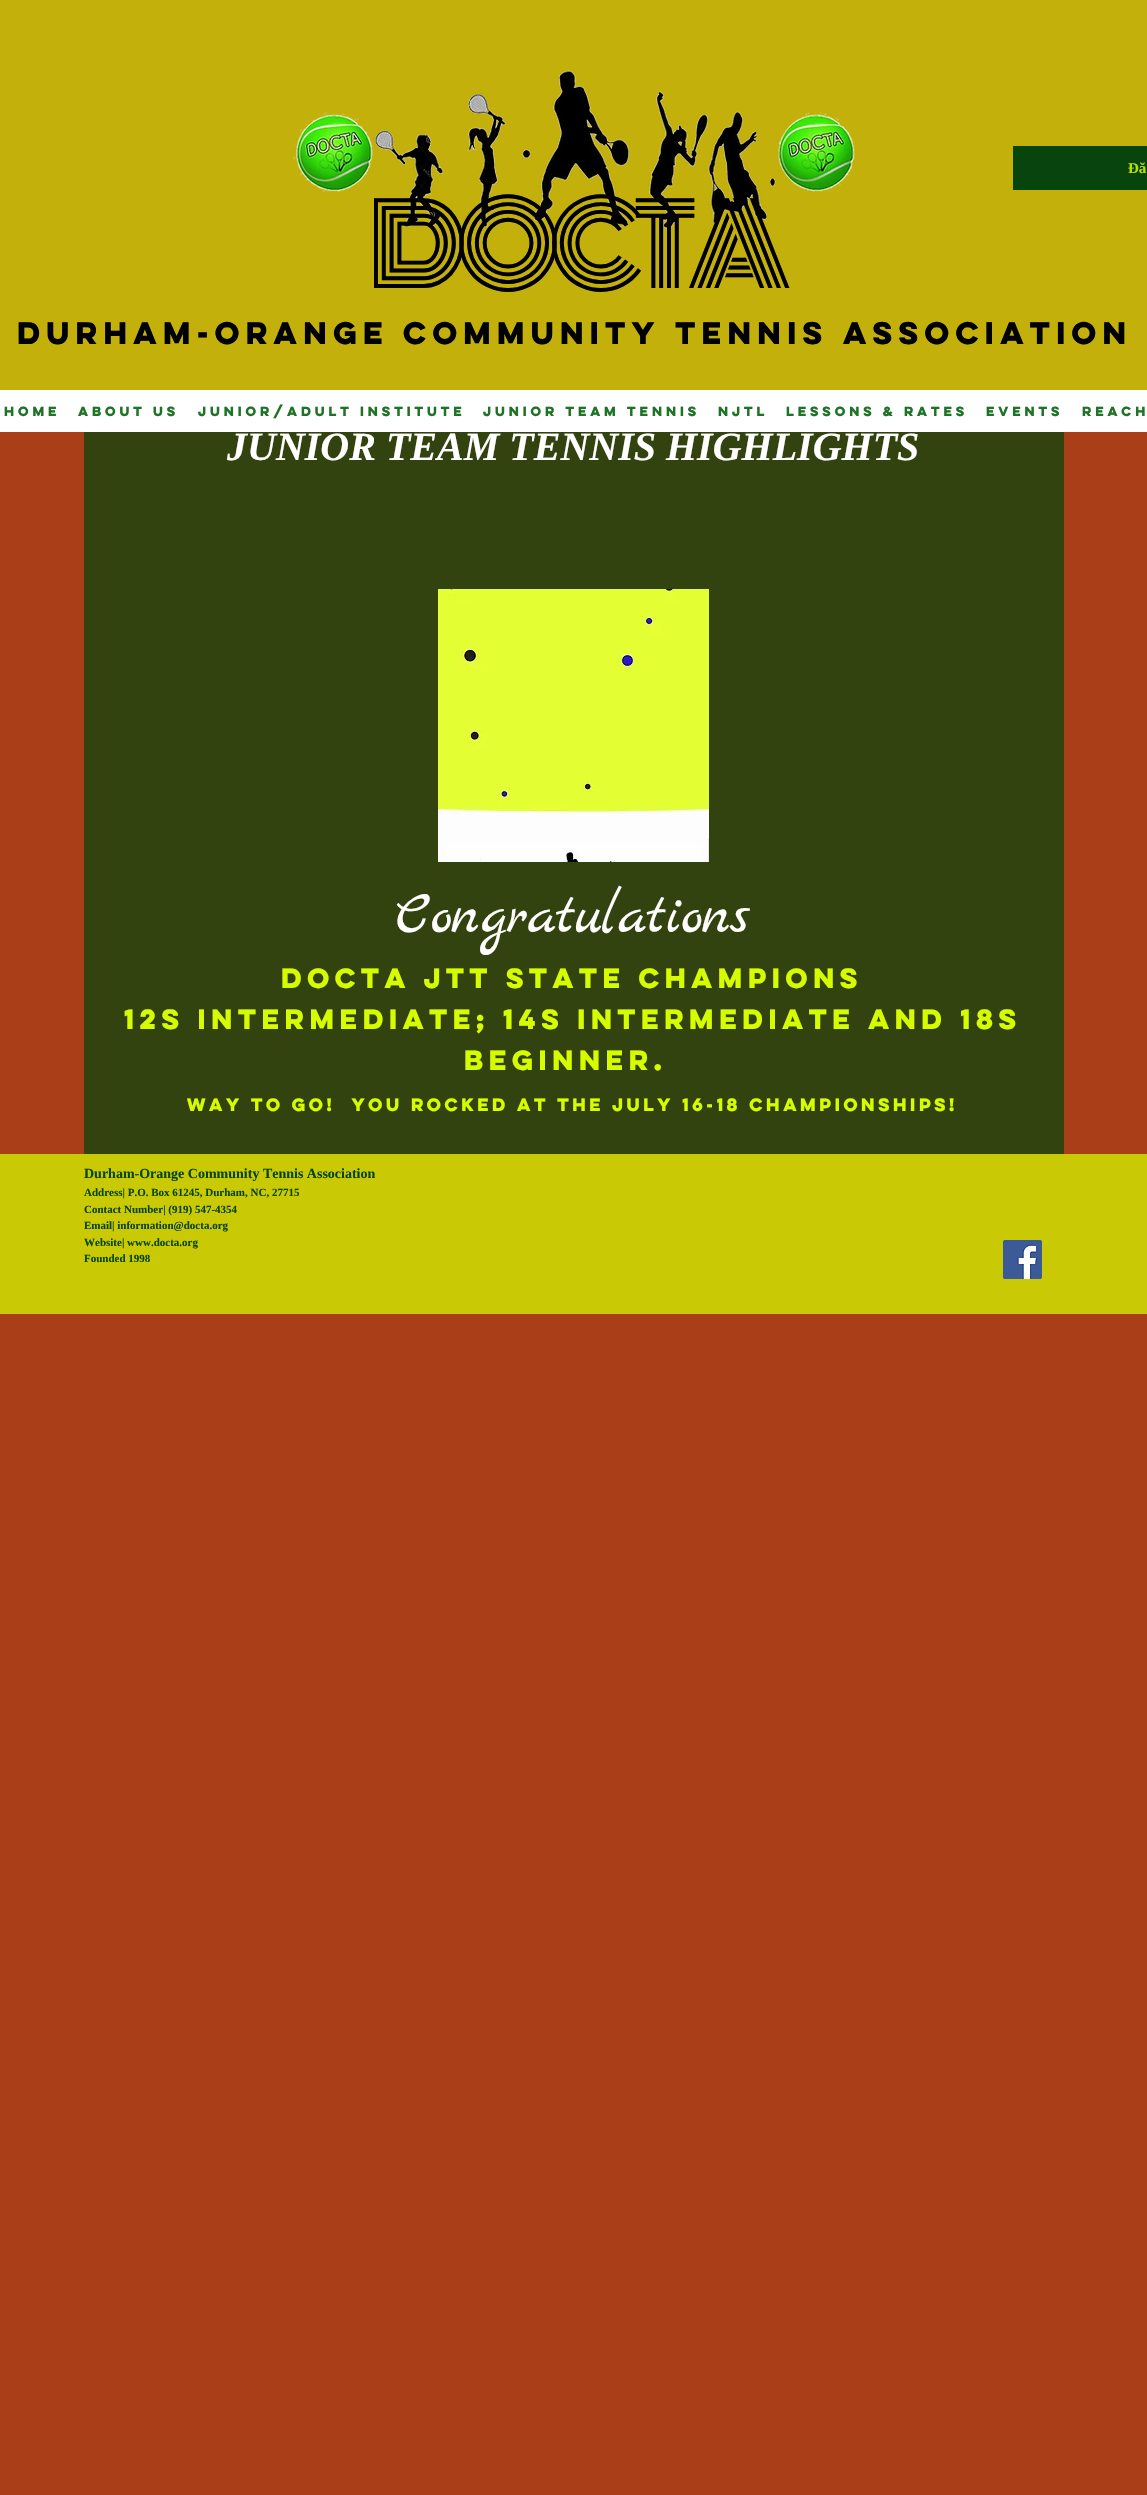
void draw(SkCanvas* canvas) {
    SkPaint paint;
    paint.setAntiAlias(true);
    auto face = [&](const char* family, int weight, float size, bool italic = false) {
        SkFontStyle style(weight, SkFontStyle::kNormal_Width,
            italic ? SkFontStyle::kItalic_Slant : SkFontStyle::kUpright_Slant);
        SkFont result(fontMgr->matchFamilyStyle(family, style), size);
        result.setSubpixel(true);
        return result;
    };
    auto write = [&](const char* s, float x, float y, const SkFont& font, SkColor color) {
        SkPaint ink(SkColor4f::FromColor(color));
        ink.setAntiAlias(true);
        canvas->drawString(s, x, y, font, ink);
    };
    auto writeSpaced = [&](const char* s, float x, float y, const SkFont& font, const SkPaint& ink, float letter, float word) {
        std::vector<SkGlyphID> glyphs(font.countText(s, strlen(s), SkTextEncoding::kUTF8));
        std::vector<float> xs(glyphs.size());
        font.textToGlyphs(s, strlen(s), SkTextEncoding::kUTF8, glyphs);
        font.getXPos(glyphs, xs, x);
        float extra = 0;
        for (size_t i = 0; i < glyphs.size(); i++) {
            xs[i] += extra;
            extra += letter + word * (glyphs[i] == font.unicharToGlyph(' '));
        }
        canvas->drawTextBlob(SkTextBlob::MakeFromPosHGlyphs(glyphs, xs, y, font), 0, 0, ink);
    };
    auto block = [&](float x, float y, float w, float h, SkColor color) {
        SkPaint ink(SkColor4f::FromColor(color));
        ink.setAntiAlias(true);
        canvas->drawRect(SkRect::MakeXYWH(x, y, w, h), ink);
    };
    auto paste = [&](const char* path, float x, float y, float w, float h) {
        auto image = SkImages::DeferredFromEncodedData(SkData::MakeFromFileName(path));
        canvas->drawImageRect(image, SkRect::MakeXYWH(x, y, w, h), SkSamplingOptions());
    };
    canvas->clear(SkColorSetRGB(170, 62, 24));
    block(0, 0, 1147, 390, SkColorSetRGB(196, 176, 10));
    paste("pic1.png", 293, 70, 562, 159);
    block(1013, 146, 134, 44, SkColorSetRGB(8, 69, 13));
    auto kFont1 = face("Liberation Serif", 700, 15);
    write("Đă", 1128, 173, kFont1, SkColorSetRGB(185, 222, 2));
    auto kFont2 = face("Monoton", 400, 111);
    paint.setColor(SK_ColorBLACK);
    writeSpaced("DOCTA", 369, 288, kFont2, paint, -11, 0);
    auto kFont3 = face("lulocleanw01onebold", 700, 28);
    write("Durham-Orange Community Tennis Association", 17, 344, kFont3, SK_ColorBLACK);
    block(0, 390, 1147, 42, SK_ColorWHITE);
    auto kFont4 = face("lulocleanw01onebold", 700, 12);
    paint.setColor(SkColorSetRGB(31, 115, 39));
    writeSpaced("Home", 4, 416, kFont4, paint, 1.2f, 0);
    writeSpaced("About Us", 78, 416, kFont4, paint, 1.2f, 0);
    writeSpaced("Junior/Adult Institute", 198, 416, kFont4, paint, 1.2f, 0);
    writeSpaced("Junior Team Tennis", 483, 416, kFont4, paint, 1.2f, 0);
    writeSpaced("NJTL", 718, 416, kFont4, paint, 1.2f, 0);
    writeSpaced("Lessons & Rates", 786, 416, kFont4, paint, 1.2f, 0);
    writeSpaced("Events", 986, 416, kFont4, paint, 1.2f, 0);
    writeSpaced("Reach", 1082, 416, kFont4, paint, 1.2f, 0);
    block(84, 432, 980, 722, SkColorSetRGB(51, 67, 16));
    auto kFont5 = face("Liberation Serif", 700, 40, true);
    write("JUNIOR TEAM TENNIS HIGHLIGHTS", 227, 460, kFont5, SK_ColorWHITE);
    paste("pic2.png", 438, 589, 271, 273);
    auto kFont6 = face("Marck Script", 400, 60);
    write("Congratulations", 395, 932, kFont6, SK_ColorWHITE);
    auto kFont7 = face("lulocleanw01onebold", 700, 25);
    write("DOCTA JTT State Champions", 281, 988, kFont7, SkColorSetRGB(214, 252, 0));
    write("12s Intermediate; 14s Intermediate and 18s", 124, 1029, kFont7, SkColorSetRGB(214, 252, 0));
    write("Beginner.", 464, 1070, kFont7, SkColorSetRGB(214, 252, 0));
    auto kFont8 = face("lulocleanw01onebold", 700, 16);
    write("Way to Go!  You rocked at the July 16-18 Championships!", 187, 1111, kFont8, SkColorSetRGB(214, 252, 0));
    block(0, 1154, 1147, 160, SkColorSetRGB(202, 201, 6));
    auto kFont9 = face("Liberation Serif", 700, 14);
    write("Durham-Orange Community Tennis Association", 84, 1178, kFont9, SkColorSetRGB(8, 69, 13));
    auto kFont10 = face("Liberation Serif", 700, 11);
    write("Address| P.O. Box 61245, Durham, NC, 27715", 84, 1196, kFont10, SkColorSetRGB(8, 69, 13));
    write("Contact Number| (919) 547-4354", 84, 1213, kFont10, SkColorSetRGB(8, 69, 13));
    write("Email| information@docta.org", 84, 1229, kFont10, SkColorSetRGB(8, 69, 13));
    write("Website| www.docta.org", 84, 1246, kFont10, SkColorSetRGB(8, 69, 13));
    write("Founded 1998", 84, 1262, kFont10, SkColorSetRGB(8, 69, 13));
    paste("pic3.png", 1003, 1240, 39, 39);
}
